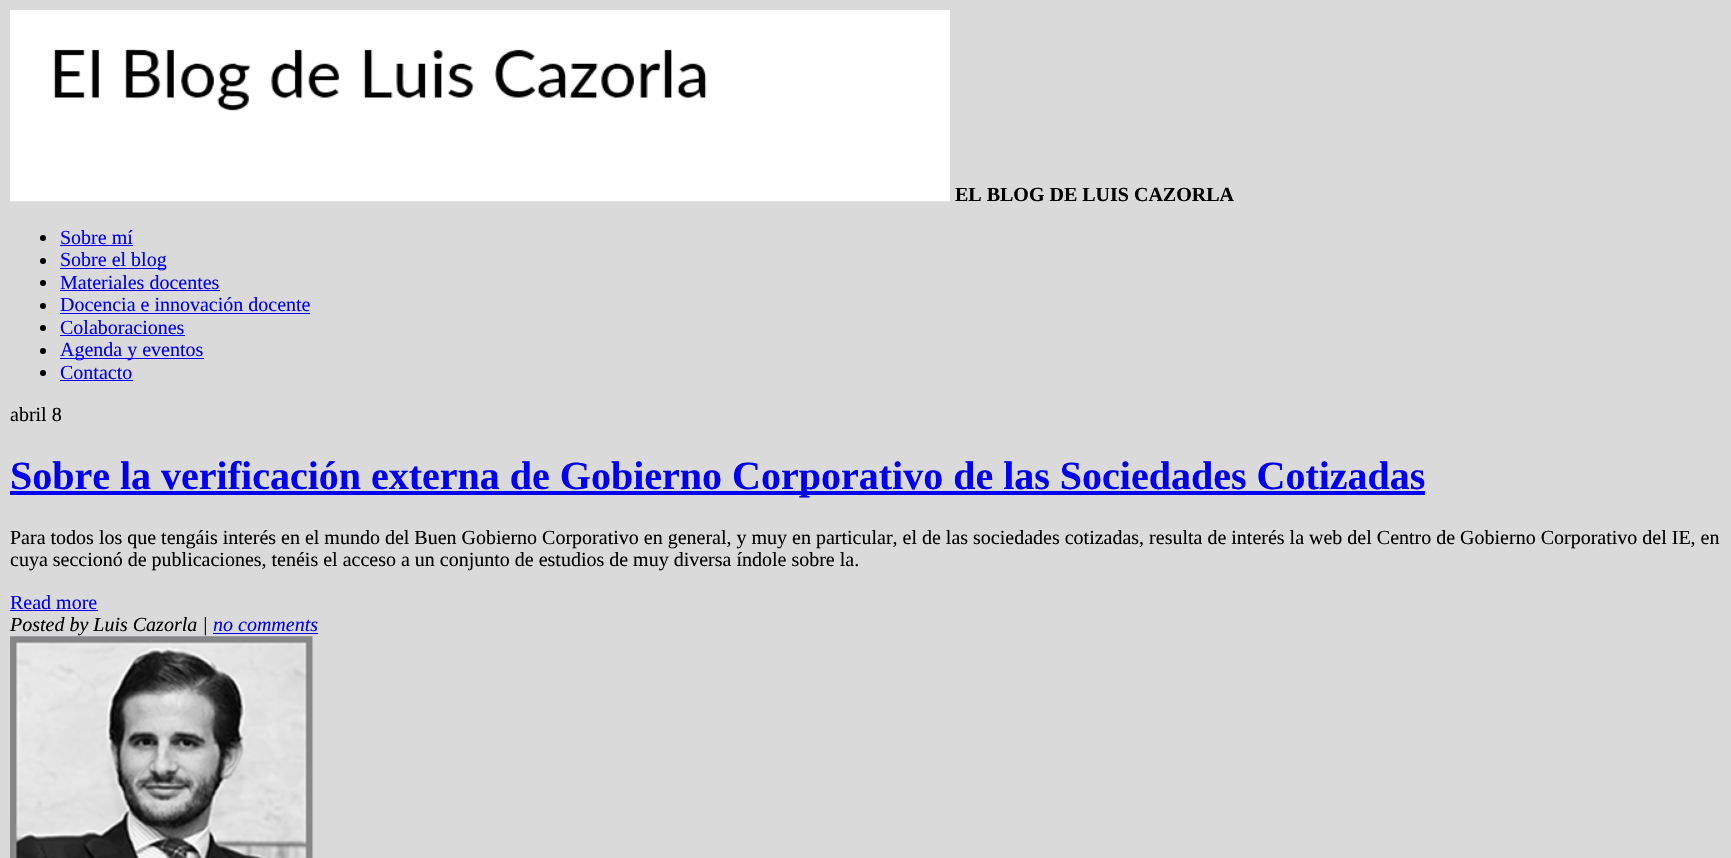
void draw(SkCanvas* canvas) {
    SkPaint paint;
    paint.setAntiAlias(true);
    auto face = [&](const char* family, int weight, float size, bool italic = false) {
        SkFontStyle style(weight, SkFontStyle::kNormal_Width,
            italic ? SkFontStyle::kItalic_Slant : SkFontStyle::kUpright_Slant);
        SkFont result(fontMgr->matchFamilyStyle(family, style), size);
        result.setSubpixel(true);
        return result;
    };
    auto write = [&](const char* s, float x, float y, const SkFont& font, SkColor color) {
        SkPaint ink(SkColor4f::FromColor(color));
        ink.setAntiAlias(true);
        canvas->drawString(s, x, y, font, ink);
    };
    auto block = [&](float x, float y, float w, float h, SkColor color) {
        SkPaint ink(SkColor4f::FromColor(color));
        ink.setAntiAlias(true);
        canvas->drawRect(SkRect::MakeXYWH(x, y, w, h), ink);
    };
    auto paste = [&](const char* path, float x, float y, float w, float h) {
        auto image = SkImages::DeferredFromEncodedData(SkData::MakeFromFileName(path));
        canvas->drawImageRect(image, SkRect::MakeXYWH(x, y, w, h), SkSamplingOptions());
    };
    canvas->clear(SkColorSetRGB(218, 218, 218));
    paste("pic1.png", 10, 10, 940, 192);
    auto kFont1 = face("Liberation Serif", 700, 20);
    write("EL BLOG DE LUIS CAZORLA", 955, 201, kFont1, SK_ColorBLACK);
    paint.setColor(SK_ColorBLACK);
    canvas->drawCircle(43, 238, 3, paint);
    auto kFont2 = face("Liberation Serif", 400, 20);
    write("Sobre mí", 60, 244, kFont2, SkColorSetRGB(0, 0, 238));
    block(60, 245, 73, 1, SkColorSetRGB(0, 0, 238));
    canvas->drawCircle(43, 261, 3, paint);
    block(60, 268, 106, 1, SkColorSetRGB(0, 0, 238));
    write("Sobre el blog", 60, 266, kFont2, SkColorSetRGB(0, 0, 238));
    canvas->drawCircle(43, 283, 3, paint);
    write("Materiales docentes", 60, 289, kFont2, SkColorSetRGB(0, 0, 238));
    block(60, 290, 160, 1, SkColorSetRGB(0, 0, 238));
    canvas->drawCircle(43, 306, 3, paint);
    write("Docencia e innovación docente", 60, 311, kFont2, SkColorSetRGB(0, 0, 238));
    block(60, 313, 250, 1, SkColorSetRGB(0, 0, 238));
    canvas->drawCircle(43, 328, 3, paint);
    write("Colaboraciones", 60, 334, kFont2, SkColorSetRGB(0, 0, 238));
    block(60, 335, 125, 1, SkColorSetRGB(0, 0, 238));
    canvas->drawCircle(43, 351, 3, paint);
    block(60, 358, 144, 1, SkColorSetRGB(0, 0, 238));
    write("Agenda y eventos", 60, 356, kFont2, SkColorSetRGB(0, 0, 238));
    canvas->drawCircle(43, 373, 3, paint);
    write("Contacto", 60, 379, kFont2, SkColorSetRGB(0, 0, 238));
    block(60, 380, 73, 1, SkColorSetRGB(0, 0, 238));
    write("abril 8", 10, 421, kFont2, SK_ColorBLACK);
    block(10, 491, 1415, 4, SkColorSetRGB(0, 0, 238));
    auto kFont3 = face("Liberation Serif", 700, 40);
    write("Sobre la verificación externa de Gobierno Corporativo de las Sociedades Cotizadas", 10, 489, kFont3, SkColorSetRGB(0, 0, 238));
    write("Para todos los que tengáis interés en el mundo del Buen Gobierno Corporativo en general, y muy en particular, el de las sociedades cotizadas, resulta de interés la web del Centro de Gobierno Corporativo del IE, en", 10, 544, kFont2, SK_ColorBLACK);
    write("cuya seccionó de publicaciones, tenéis el acceso a un conjunto de estudios de muy diversa índole sobre la.", 10, 566, kFont2, SK_ColorBLACK);
    write("Read more", 10, 609, kFont2, SkColorSetRGB(0, 0, 238));
    block(10, 610, 88, 1, SkColorSetRGB(0, 0, 238));
    auto kFont4 = face("Liberation Serif", 400, 20, true);
    write("Posted by Luis Cazorla |", 10, 631, kFont4, SK_ColorBLACK);
    write("no comments", 213, 631, kFont4, SkColorSetRGB(0, 0, 238));
    block(213, 633, 105, 1, SkColorSetRGB(0, 0, 238));
    paste("pic2.png", 10, 636, 303, 222);
}
